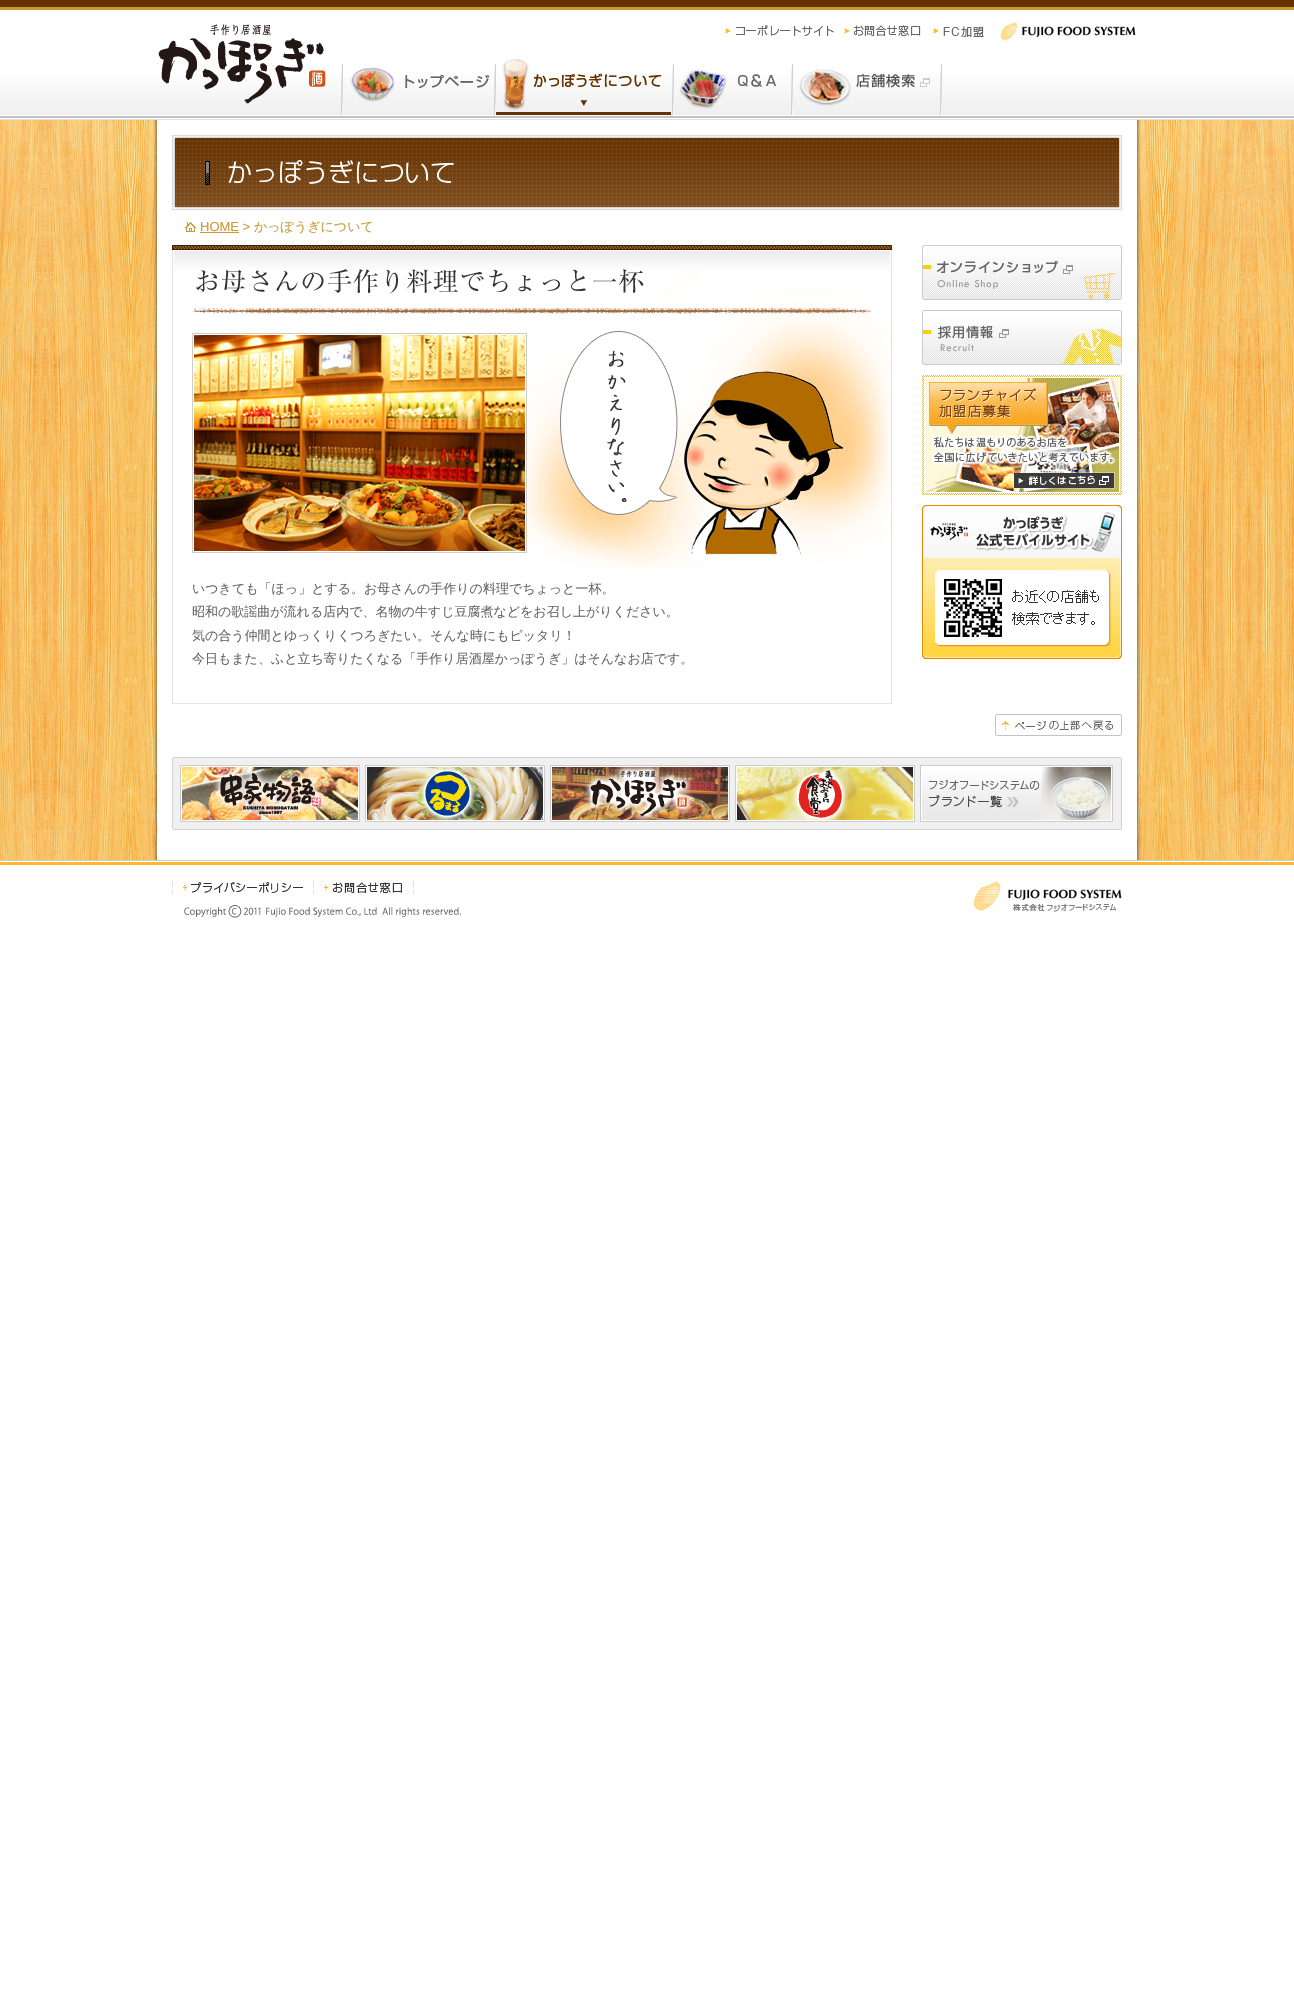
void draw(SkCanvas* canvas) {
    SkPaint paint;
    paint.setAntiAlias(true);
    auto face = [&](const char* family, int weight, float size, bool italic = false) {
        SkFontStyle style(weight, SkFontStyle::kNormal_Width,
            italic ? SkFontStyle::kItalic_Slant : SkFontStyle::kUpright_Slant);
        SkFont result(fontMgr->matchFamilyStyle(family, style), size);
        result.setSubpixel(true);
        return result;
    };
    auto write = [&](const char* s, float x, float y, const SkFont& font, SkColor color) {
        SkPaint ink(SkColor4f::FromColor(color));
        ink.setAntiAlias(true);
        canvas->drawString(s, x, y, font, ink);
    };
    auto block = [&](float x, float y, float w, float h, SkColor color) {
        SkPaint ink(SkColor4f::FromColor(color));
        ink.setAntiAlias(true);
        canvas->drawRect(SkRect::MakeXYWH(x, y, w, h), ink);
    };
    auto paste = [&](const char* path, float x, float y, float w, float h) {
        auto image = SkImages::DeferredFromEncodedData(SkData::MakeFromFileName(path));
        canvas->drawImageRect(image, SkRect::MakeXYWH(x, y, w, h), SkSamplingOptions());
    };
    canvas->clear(SK_ColorWHITE);
    paste("pic1.png", 0, 0, 1294, 120);
    paste("pic2.png", 157, 24, 169, 80);
    paste("pic3.png", 725, 25, 109, 11);
    paste("pic4.png", 844, 25, 77, 11);
    paste("pic5.png", 933, 26, 51, 11);
    paste("pic6.png", 1000, 22, 136, 19);
    paste("pic7.png", 341, 64, 154, 51);
    paste("pic8.png", 495, 59, 178, 56);
    paste("pic9.png", 673, 64, 119, 51);
    paste("pic10.png", 792, 64, 150, 51);
    paste("pic11.png", 0, 120, 1294, 740);
    block(0, 860, 1294, 1, SkColorSetRGB(204, 204, 204));
    paste("pic12.png", 152, 120, 990, 740);
    paste("pic13.png", 172, 135, 950, 75);
    paste("pic14.png", 185, 222, 11, 10);
    auto kFont1 = face("Liberation Sans", 400, 13);
    write("HOME >", 200, 231, kFont1, SkColorSetRGB(204, 153, 51));
    block(200, 232, 39, 1, SkColorSetRGB(204, 153, 51));
    auto kFont2 = face("WenQuanYi Zen Hei", 500, 13);
    write("かっぽうぎについて", 254, 231, kFont2, SkColorSetRGB(204, 153, 51));
    paste("pic15.png", 172, 245, 720, 5);
    paste("pic16.png", 173, 250, 718, 40);
    block(891, 250, 1, 454, SkColorSetRGB(228, 228, 228));
    block(172, 703, 720, 1, SkColorSetRGB(228, 228, 228));
    block(172, 250, 1, 454, SkColorSetRGB(228, 228, 228));
    paste("pic17.png", 192, 269, 680, 47);
    paint.setStyle(SkPaint::kStroke_Style);
    paint.setStrokeWidth(1);
    paint.setColor(SkColorSetRGB(204, 204, 204));
    canvas->drawRect(SkRect::MakeXYWH(192.5f, 333.5f, 334, 219), paint);
    paste("pic18.png", 194, 335, 331, 216);
    paste("pic19.png", 527, 316, 364, 253);
    write("いつきても「ほっ」とする。お母さんの手作りの料理でちょっと一杯。", 192, 593, kFont2, SkColorSetRGB(102, 102, 102));
    write("昭和の歌謡曲が流れる店内で、名物の牛すじ豆腐煮などをお召し上がりください。", 192, 616, kFont2, SkColorSetRGB(102, 102, 102));
    write("気の合う仲間とゆっくりくつろぎたい。そんな時にもピッタリ！", 192, 640, kFont2, SkColorSetRGB(102, 102, 102));
    write("今日もまた、ふと立ち寄りたくなる「手作り居酒屋かっぽうぎ」はそんなお店です。", 192, 663, kFont2, SkColorSetRGB(102, 102, 102));
    paste("pic20.png", 922, 245, 200, 55);
    paste("pic21.png", 922, 310, 200, 55);
    paste("pic22.png", 922, 375, 200, 120);
    paste("pic23.png", 922, 505, 200, 154);
    paste("pic24.png", 995, 714, 127, 22);
    paste("pic25.png", 172, 759, 950, 71);
    paste("pic26.png", 172, 757, 950, 2);
    paint.setStyle(SkPaint::kFill_Style);
    paint.setColor(SK_ColorWHITE);
    canvas->drawRect(SkRect::MakeXYWH(180.5f, 765.5f, 179, 56), paint);
    paint.setStyle(SkPaint::kStroke_Style);
    paint.setColor(SkColorSetRGB(204, 204, 204));
    canvas->drawRect(SkRect::MakeXYWH(180.5f, 765.5f, 179, 56), paint);
    paste("pic27.png", 182, 767, 176, 53);
    paint.setStyle(SkPaint::kFill_Style);
    paint.setColor(SK_ColorWHITE);
    canvas->drawRect(SkRect::MakeXYWH(365.5f, 765.5f, 179, 56), paint);
    paint.setStyle(SkPaint::kStroke_Style);
    paint.setColor(SkColorSetRGB(204, 204, 204));
    canvas->drawRect(SkRect::MakeXYWH(365.5f, 765.5f, 179, 56), paint);
    paste("pic28.png", 367, 767, 176, 53);
    paint.setStyle(SkPaint::kFill_Style);
    paint.setColor(SK_ColorWHITE);
    canvas->drawRect(SkRect::MakeXYWH(550.5f, 765.5f, 179, 56), paint);
    paint.setStyle(SkPaint::kStroke_Style);
    paint.setColor(SkColorSetRGB(204, 204, 204));
    canvas->drawRect(SkRect::MakeXYWH(550.5f, 765.5f, 179, 56), paint);
    paste("pic29.png", 552, 767, 176, 53);
    paint.setStyle(SkPaint::kFill_Style);
    paint.setColor(SK_ColorWHITE);
    canvas->drawRect(SkRect::MakeXYWH(735.5f, 765.5f, 179, 56), paint);
    paint.setStyle(SkPaint::kStroke_Style);
    paint.setColor(SkColorSetRGB(204, 204, 204));
    canvas->drawRect(SkRect::MakeXYWH(735.5f, 765.5f, 179, 56), paint);
    paste("pic30.png", 737, 767, 176, 53);
    paint.setStyle(SkPaint::kFill_Style);
    paint.setColor(SK_ColorWHITE);
    canvas->drawRect(SkRect::MakeXYWH(920.5f, 765.5f, 192, 56), paint);
    paint.setStyle(SkPaint::kStroke_Style);
    paint.setColor(SkColorSetRGB(204, 204, 204));
    canvas->drawRect(SkRect::MakeXYWH(920.5f, 765.5f, 192, 56), paint);
    paste("pic31.png", 922, 767, 189, 53);
    block(0, 862, 1294, 3, SkColorSetRGB(253, 184, 43));
    paste("pic32.png", 172, 881, 142, 13);
    paste("pic33.png", 324, 881, 90, 13);
    paste("pic34.png", 973, 881, 149, 31);
    paste("pic35.png", 184, 905, 277, 13);
}
